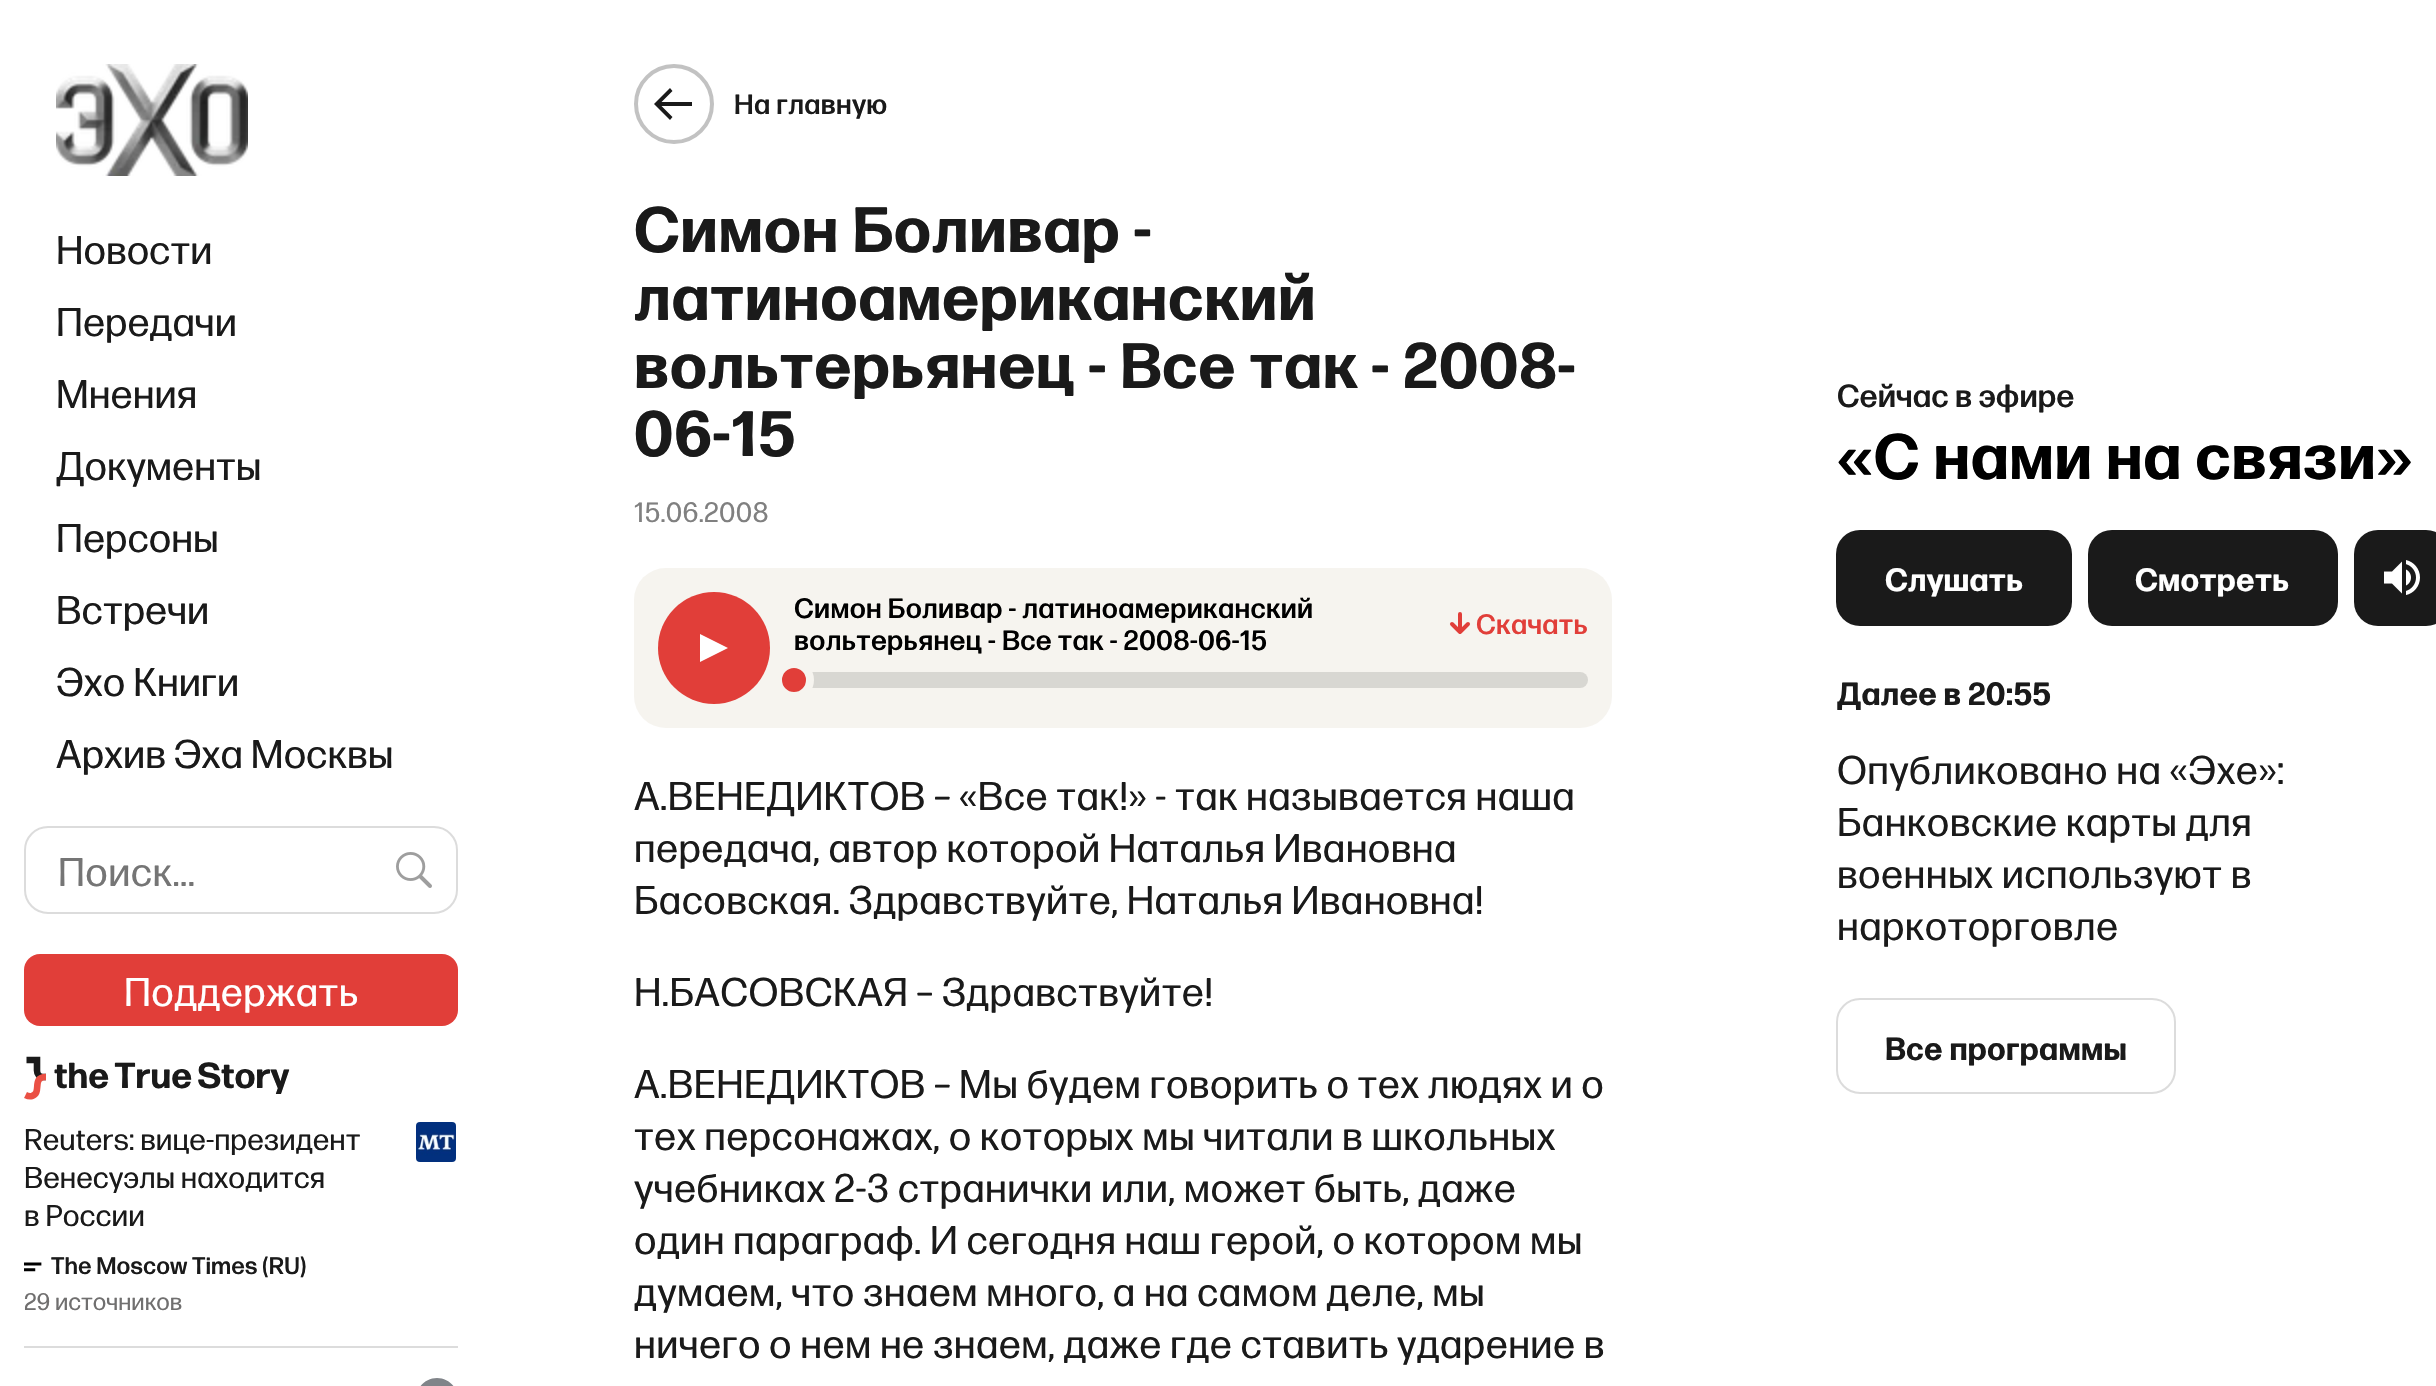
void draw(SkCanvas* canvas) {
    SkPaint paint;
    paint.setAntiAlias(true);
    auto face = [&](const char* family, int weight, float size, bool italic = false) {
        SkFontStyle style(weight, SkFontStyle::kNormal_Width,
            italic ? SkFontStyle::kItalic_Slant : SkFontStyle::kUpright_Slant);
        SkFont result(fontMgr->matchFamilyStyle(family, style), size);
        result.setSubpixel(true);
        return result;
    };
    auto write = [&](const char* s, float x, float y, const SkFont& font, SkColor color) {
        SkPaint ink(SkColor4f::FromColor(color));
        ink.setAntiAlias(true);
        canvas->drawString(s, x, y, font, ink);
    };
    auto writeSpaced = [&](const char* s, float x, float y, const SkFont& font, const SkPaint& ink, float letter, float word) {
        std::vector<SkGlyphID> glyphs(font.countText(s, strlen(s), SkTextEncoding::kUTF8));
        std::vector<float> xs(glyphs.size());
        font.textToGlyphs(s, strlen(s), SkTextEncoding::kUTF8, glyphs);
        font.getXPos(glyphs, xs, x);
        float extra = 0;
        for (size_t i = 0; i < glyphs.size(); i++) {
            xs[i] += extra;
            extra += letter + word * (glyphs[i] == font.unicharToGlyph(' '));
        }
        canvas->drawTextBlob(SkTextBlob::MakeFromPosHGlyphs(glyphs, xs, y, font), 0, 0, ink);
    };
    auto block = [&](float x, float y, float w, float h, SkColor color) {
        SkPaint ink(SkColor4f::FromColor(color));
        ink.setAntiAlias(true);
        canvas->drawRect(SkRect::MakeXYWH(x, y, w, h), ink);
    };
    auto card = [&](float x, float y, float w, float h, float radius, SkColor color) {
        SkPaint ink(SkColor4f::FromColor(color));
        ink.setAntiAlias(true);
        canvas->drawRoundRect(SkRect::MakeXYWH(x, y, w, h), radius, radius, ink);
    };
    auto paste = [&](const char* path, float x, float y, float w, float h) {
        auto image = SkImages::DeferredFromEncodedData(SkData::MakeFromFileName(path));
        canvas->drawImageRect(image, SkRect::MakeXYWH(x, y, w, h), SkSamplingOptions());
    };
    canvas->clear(SK_ColorWHITE);
    paste("pic1.png", 56, 64, 192, 112);
    auto kFont1 = face("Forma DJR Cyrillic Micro", 400, 40);
    write("Новости", 56, 264, kFont1, SkColorSetRGB(26, 26, 26));
    write("Передачи", 56, 336, kFont1, SkColorSetRGB(26, 26, 26));
    write("Мнения", 56, 408, kFont1, SkColorSetRGB(26, 26, 26));
    write("Документы", 56, 480, kFont1, SkColorSetRGB(26, 26, 26));
    write("Персоны", 56, 552, kFont1, SkColorSetRGB(26, 26, 26));
    write("Встречи", 56, 624, kFont1, SkColorSetRGB(26, 26, 26));
    write("Эхо Книги", 56, 696, kFont1, SkColorSetRGB(26, 26, 26));
    write("Архив Эха Москвы", 56, 768, kFont1, SkColorSetRGB(26, 26, 26));
    paint.setStyle(SkPaint::kStroke_Style);
    paint.setStrokeWidth(2);
    paint.setColor(SkColorSetRGB(220, 220, 220));
    canvas->drawRoundRect(SkRect::MakeXYWH(25, 827, 432, 86), 23, 23, paint);
    paint.setStyle(SkPaint::kFill_Style);
    paint.setColor(SkColorSetRGB(117, 117, 117));
    writeSpaced("Поиск...", 58, 886, kFont1, paint, 0.4f, 0);
    paste("pic2.png", 396, 852, 36, 36);
    card(24, 954, 434, 72, 16, SkColorSetRGB(225, 62, 57));
    paint.setColor(SK_ColorWHITE);
    writeSpaced("Поддержать", 124, 1006, kFont1, paint, 0.4f, 0);
    auto kFont2 = face("Forma DJR Cyrillic Micro", 700, 36);
    write("the True Story", 54, 1088, kFont2, SkColorSetRGB(26, 26, 26));
    paint.setStyle(SkPaint::kStroke_Style);
    paint.setStrokeWidth(6.6f);
    paint.setColor(SkColorSetRGB(26, 26, 26));
    canvas->drawPath(SkPathBuilder().moveTo(26.5f, 1060).lineTo(37, 1060).lineTo(37, 1070.5f).cubicTo(37, 1074.5f, 39.5f, 1077, 43, 1077).lineTo(46, 1077).detach(), paint);
    paint.setColor(SkColorSetRGB(234, 80, 68));
    canvas->drawPath(SkPathBuilder().moveTo(25.5f, 1095).cubicTo(27.5f, 1096, 30, 1096.5f, 32, 1096).cubicTo(42.5f, 1093, 31, 1077, 46, 1077).detach(), paint);
    auto kFont3 = face("Forma DJR Cyrillic Micro", 400, 30);
    write("Reuters: вице-президент", 24, 1150, kFont3, SkColorSetRGB(26, 26, 26));
    write("Венесуэлы находится", 24, 1188, kFont3, SkColorSetRGB(26, 26, 26));
    write("в России", 24, 1226, kFont3, SkColorSetRGB(26, 26, 26));
    paste("pic3.png", 416, 1122, 40, 40);
    paste("pic4.png", 24, 1262, 18, 10);
    auto kFont4 = face("Forma DJR Cyrillic Micro", 500, 24);
    write("The Moscow Times (RU)", 51, 1274, kFont4, SkColorSetRGB(26, 26, 26));
    auto kFont5 = face("Forma DJR Cyrillic Micro", 400, 24);
    write("29 источников", 24, 1310, kFont5, SkColorSetRGB(112, 111, 111));
    block(24, 1346, 434, 2, SkColorSetRGB(220, 220, 220));
    paint.setStyle(SkPaint::kFill_Style);
    paint.setColor(SkColorSetRGB(128, 132, 137));
    canvas->drawPath(SkPathBuilder().moveTo(437, 1378).cubicTo(448.5f, 1378, 458, 1387.5f, 458, 1399).lineTo(458, 1386).lineTo(416, 1386).lineTo(416, 1399).cubicTo(416, 1387.5f, 425.5f, 1378, 437, 1378).close().detach(), paint);
    paint.setStyle(SkPaint::kStroke_Style);
    paint.setStrokeWidth(4);
    paint.setColor(SkColorSetRGB(194, 194, 194));
    canvas->drawCircle(674, 104, 38, paint);
    paint.setStyle(SkPaint::kFill_Style);
    paint.setColor(SkColorSetRGB(26, 26, 26));
    canvas->drawPath(SkPathBuilder().moveTo(692, 102).lineTo(692, 106).lineTo(661.5f, 106).lineTo(672.5f, 117).lineTo(670, 120).lineTo(654, 104).lineTo(670, 88).lineTo(672.5f, 91).lineTo(661.5f, 102).close().detach(), paint);
    auto kFont6 = face("Forma DJR Cyrillic Micro", 500, 28);
    writeSpaced("На главную", 734, 114, kFont6, paint, 0.3f, 0);
    auto kFont7 = face("Forma DJR Cyrillic Micro", 700, 64);
    writeSpaced("Симон Боливар -", 634, 252, kFont7, paint, 0.65f, 0);
    writeSpaced("латиноамериканский", 634, 320, kFont7, paint, 0.65f, 0);
    writeSpaced("вольтерьянец - Все так - 2008-", 634, 388, kFont7, paint, 0.65f, 0);
    writeSpaced("06-15", 634, 456, kFont7, paint, 0.65f, 0);
    auto kFont8 = face("Forma DJR Cyrillic Micro", 400, 28);
    paint.setColor(SkColorSetRGB(128, 128, 128));
    writeSpaced("15.06.2008", 634, 522, kFont8, paint, 0.3f, 0);
    card(634, 568, 978, 160, 32, SkColorSetRGB(246, 244, 239));
    paint.setColor(SkColorSetRGB(225, 62, 57));
    canvas->drawCircle(714, 648, 56, paint);
    canvas->save();
    canvas->clipRect(SkRect::MakeXYWH(700, 634, 14, 28));
    paint.setColor(SK_ColorWHITE);
    canvas->drawPath(SkPathBuilder().moveTo(700, 662).lineTo(700, 634).lineTo(728, 648).close().detach(), paint);
    canvas->restore();
    canvas->save();
    canvas->clipRect(SkRect::MakeXYWH(714, 634, 14, 28));
    canvas->drawPath(SkPathBuilder().moveTo(700, 662).lineTo(700, 634).lineTo(728, 648).close().detach(), paint);
    canvas->restore();
    paint.setColor(SK_ColorBLACK);
    writeSpaced("Симон Боливар - латиноамериканский", 794, 618, kFont6, paint, 0.3f, 0);
    writeSpaced("вольтерьянец - Все так - 2008-06-15", 794, 650, kFont6, paint, 0.3f, 0);
    paint.setStyle(SkPaint::kStroke_Style);
    paint.setStrokeCap(SkPaint::kRound_Cap);
    paint.setStrokeJoin(SkPaint::kRound_Join);
    paint.setColor(SkColorSetRGB(225, 62, 57));
    canvas->drawPath(SkPathBuilder().moveTo(1460, 614).lineTo(1460, 632).moveTo(1468, 624).lineTo(1460, 632).lineTo(1452, 624).detach(), paint);
    paint.setStyle(SkPaint::kFill_Style);
    writeSpaced("Скачать", 1476, 634, kFont6, paint, 0.3f, 0);
    card(794, 672, 794, 16, 8, SkColorSetRGB(216, 215, 210));
    canvas->drawCircle(794, 680, 16, paint);
    paint.setStyle(SkPaint::kStroke_Style);
    paint.setStrokeWidth(8);
    paint.setStrokeCap(SkPaint::kButt_Cap);
    paint.setStrokeJoin(SkPaint::kMiter_Join);
    paint.setColor(SkColorSetRGB(246, 244, 239));
    canvas->drawCircle(794, 680, 16, paint);
    paint.setStyle(SkPaint::kFill_Style);
    paint.setColor(SkColorSetRGB(26, 26, 26));
    writeSpaced("А.ВЕНЕДИКТОВ – «Все так!» - так называется наша", 634, 810, kFont1, paint, 0.4f, 0);
    writeSpaced("передача, автор которой Наталья Ивановна", 634, 862, kFont1, paint, 0.4f, 0);
    writeSpaced("Басовская. Здравствуйте, Наталья Ивановна!", 634, 914, kFont1, paint, 0.4f, 0);
    writeSpaced("Н.БАСОВСКАЯ – Здравствуйте!", 634, 1006, kFont1, paint, 0.4f, 0);
    writeSpaced("А.ВЕНЕДИКТОВ – Мы будем говорить о тех людях и о", 634, 1098, kFont1, paint, 0.4f, 0);
    writeSpaced("тех персонажах, о которых мы читали в школьных", 634, 1150, kFont1, paint, 0.4f, 0);
    writeSpaced("учебниках 2-3 странички или, может быть, даже", 634, 1202, kFont1, paint, 0.4f, 0);
    writeSpaced("один параграф. И сегодня наш герой, о котором мы", 634, 1254, kFont1, paint, 0.4f, 0);
    writeSpaced("думаем, что знаем много, а на самом деле, мы", 634, 1306, kFont1, paint, 0.4f, 0);
    writeSpaced("ничего о нем не знаем, даже где ставить ударение в", 634, 1358, kFont1, paint, 0.4f, 0);
    auto kFont9 = face("Forma DJR Cyrillic Micro", 500, 32);
    write("Сейчас в эфире", 1837, 407, kFont9, SkColorSetRGB(26, 26, 26));
    paint.setColor(SK_ColorBLACK);
    writeSpaced("«С нами на связи»", 1837, 479, kFont7, paint, 0.65f, 0);
    card(1836, 530, 236, 96, 24, SkColorSetRGB(26, 26, 26));
    auto kFont10 = face("Forma DJR Cyrillic Micro", 700, 32);
    paint.setColor(SK_ColorWHITE);
    writeSpaced("Слушать", 1885, 591, kFont10, paint, 0.25f, 0);
    card(2088, 530, 250, 96, 24, SkColorSetRGB(26, 26, 26));
    writeSpaced("Смотреть", 2135, 591, kFont10, paint, 0.25f, 0);
    card(2354, 530, 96, 96, 24, SkColorSetRGB(26, 26, 26));
    paste("pic5.png", 2384, 560, 36, 35);
    paint.setColor(SkColorSetRGB(26, 26, 26));
    writeSpaced("Далее в 20:55", 1837, 705, kFont10, paint, 0.25f, 0);
    writeSpaced("Опубликовано на «Эхе»:", 1837, 784, kFont1, paint, 0.4f, 0);
    writeSpaced("Банковские карты для", 1837, 836, kFont1, paint, 0.4f, 0);
    writeSpaced("военных используют в", 1837, 888, kFont1, paint, 0.4f, 0);
    writeSpaced("наркоторговле", 1837, 940, kFont1, paint, 0.4f, 0);
    paint.setStyle(SkPaint::kStroke_Style);
    paint.setStrokeWidth(2);
    paint.setColor(SkColorSetRGB(220, 220, 220));
    canvas->drawRoundRect(SkRect::MakeXYWH(1837, 999, 338, 94), 23, 23, paint);
    paint.setStyle(SkPaint::kFill_Style);
    paint.setColor(SkColorSetRGB(26, 26, 26));
    writeSpaced("Все программы", 1885, 1060, kFont10, paint, 0.25f, 0);
}
